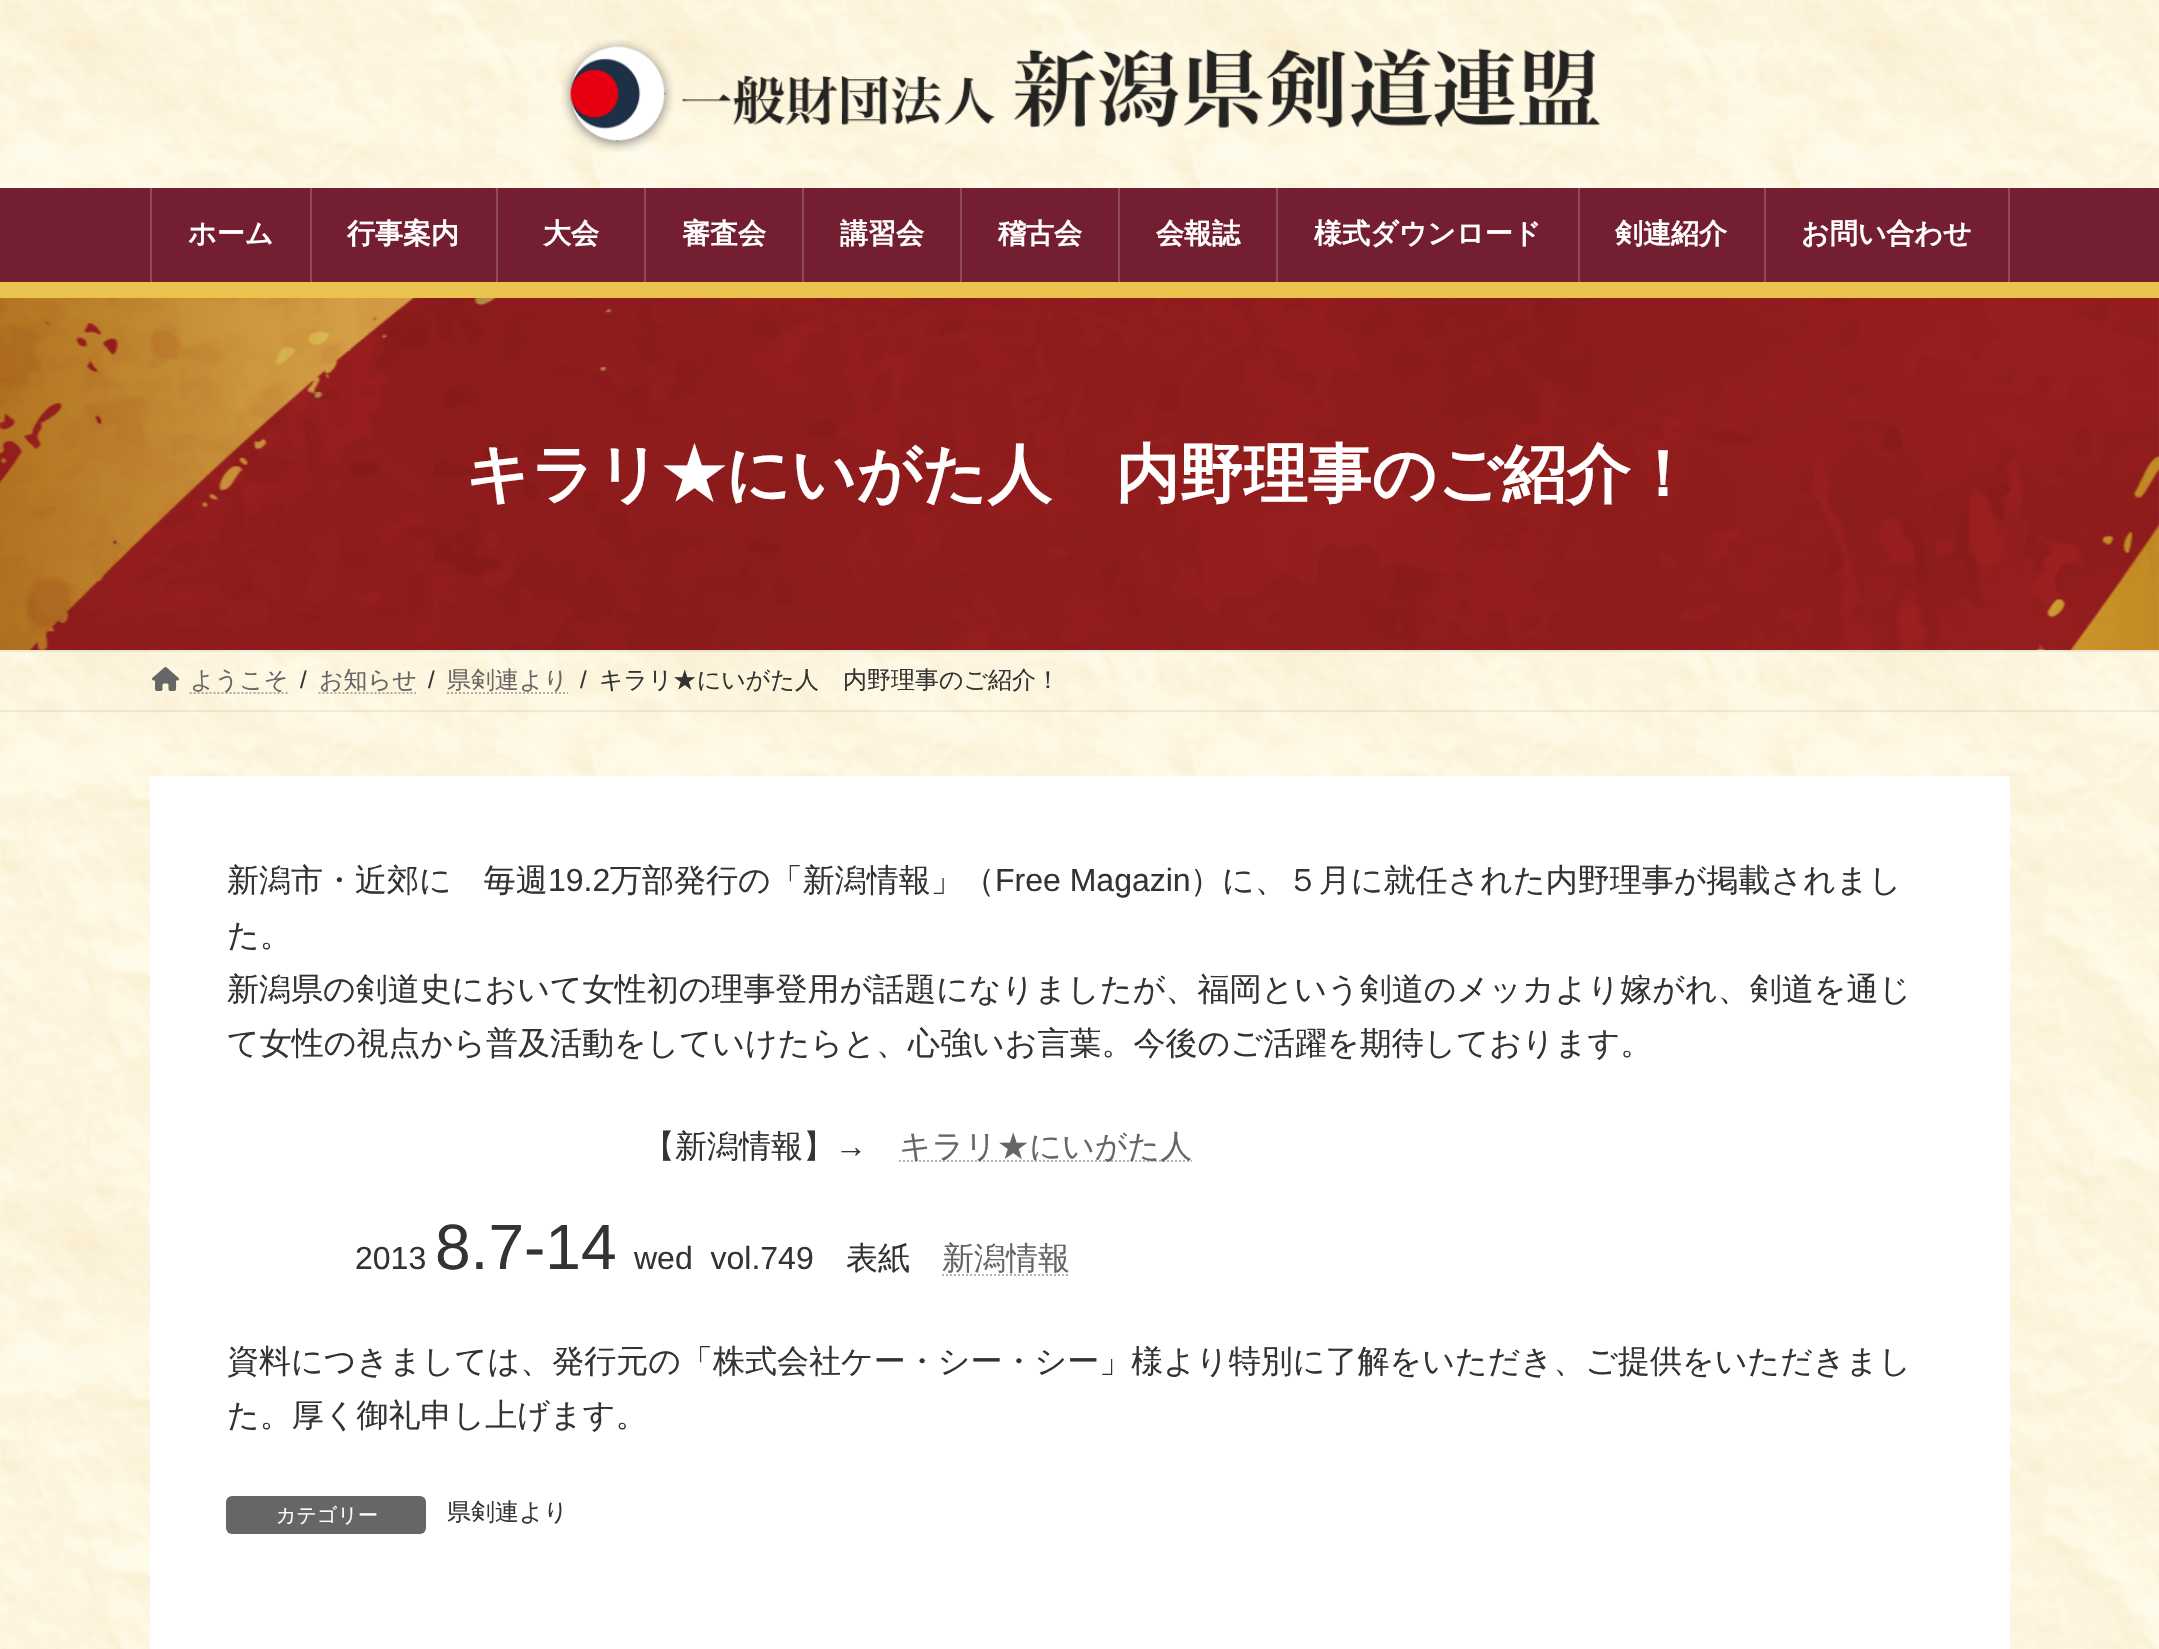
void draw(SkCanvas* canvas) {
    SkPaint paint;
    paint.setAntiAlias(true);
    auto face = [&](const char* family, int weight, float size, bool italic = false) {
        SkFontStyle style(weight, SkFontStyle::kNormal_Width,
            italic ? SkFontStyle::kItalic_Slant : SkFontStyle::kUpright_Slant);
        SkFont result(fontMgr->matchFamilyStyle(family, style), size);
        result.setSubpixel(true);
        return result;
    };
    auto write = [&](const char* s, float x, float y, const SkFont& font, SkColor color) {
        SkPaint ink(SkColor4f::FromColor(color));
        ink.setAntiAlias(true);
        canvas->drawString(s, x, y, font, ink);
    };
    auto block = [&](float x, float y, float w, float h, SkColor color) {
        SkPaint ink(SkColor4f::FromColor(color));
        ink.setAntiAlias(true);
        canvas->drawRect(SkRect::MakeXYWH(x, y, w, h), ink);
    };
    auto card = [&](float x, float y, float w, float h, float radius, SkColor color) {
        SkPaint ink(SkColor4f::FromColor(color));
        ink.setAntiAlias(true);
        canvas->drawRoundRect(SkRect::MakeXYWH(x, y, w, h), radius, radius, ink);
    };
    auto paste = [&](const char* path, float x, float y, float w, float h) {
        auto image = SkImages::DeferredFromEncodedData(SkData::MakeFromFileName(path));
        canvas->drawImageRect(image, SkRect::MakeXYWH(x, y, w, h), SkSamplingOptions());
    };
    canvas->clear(SK_ColorWHITE);
    paste("pic1.png", 0, 0, 2159, 1649);
    paste("pic2.png", 561, 39, 1039, 113);
    block(0, 188, 2159, 94, SkColorSetRGB(115, 30, 49));
    block(310, 188, 2, 94, SkColorSetRGB(143, 75, 90));
    block(150, 188, 2, 94, SkColorSetRGB(143, 75, 90));
    auto kFont1 = face("WenQuanYi Zen Hei", 700, 28);
    write("ホーム", 188, 243, kFont1, SK_ColorWHITE);
    block(496, 188, 2, 94, SkColorSetRGB(143, 75, 90));
    write("行事案内", 347, 243, kFont1, SK_ColorWHITE);
    block(644, 188, 2, 94, SkColorSetRGB(143, 75, 90));
    write("大会", 543, 243, kFont1, SK_ColorWHITE);
    block(802, 188, 2, 94, SkColorSetRGB(143, 75, 90));
    write("審査会", 682, 243, kFont1, SK_ColorWHITE);
    block(960, 188, 2, 94, SkColorSetRGB(143, 75, 90));
    write("講習会", 840, 243, kFont1, SK_ColorWHITE);
    block(1118, 188, 2, 94, SkColorSetRGB(143, 75, 90));
    write("稽古会", 998, 243, kFont1, SK_ColorWHITE);
    block(1276, 188, 2, 94, SkColorSetRGB(143, 75, 90));
    write("会報誌", 1156, 243, kFont1, SK_ColorWHITE);
    block(1578, 188, 2, 94, SkColorSetRGB(143, 75, 90));
    write("様式ダウンロード", 1314, 243, kFont1, SK_ColorWHITE);
    block(1764, 188, 2, 94, SkColorSetRGB(143, 75, 90));
    write("剣連紹介", 1615, 243, kFont1, SK_ColorWHITE);
    block(2008, 188, 2, 94, SkColorSetRGB(143, 75, 90));
    write("お問い合わせ", 1801, 243, kFont1, SK_ColorWHITE);
    block(0, 282, 2159, 16, SkColorSetRGB(234, 195, 79));
    paste("pic3.png", 0, 298, 2159, 352);
    auto kFont2 = face("WenQuanYi Zen Hei", 700, 64);
    write("キラリ★にいがた人　内野理事のご紹介！", 465, 496, kFont2, SK_ColorWHITE);
    block(0, 650, 2159, 2, SkColorSetARGB(15, 0, 0, 0));
    block(0, 710, 2159, 2, SkColorSetARGB(15, 0, 0, 0));
    paste("pic4.png", 152, 667, 27, 24);
    paint.setStyle(SkPaint::kStroke_Style);
    paint.setStrokeWidth(2);
    paint.setColor(SkColorSetARGB(77, 0, 0, 0));
    paint.setPathEffect(SkDashPathEffect::Make({{2, 2}}, 0));
    canvas->drawPath(SkPathBuilder().moveTo(189.5f, 693).lineTo(288, 693).detach(), paint);
    paint.setPathEffect(nullptr);
    auto kFont3 = face("WenQuanYi Zen Hei", 500, 24);
    write("ようこそ", 190, 688, kFont3, SkColorSetRGB(102, 102, 102));
    auto kFont4 = face("Liberation Sans", 400, 24);
    write("/", 300, 688, kFont4, SkColorSetRGB(51, 51, 51));
    write("お知らせ", 319, 688, kFont3, SkColorSetRGB(102, 102, 102));
    paint.setPathEffect(SkDashPathEffect::Make({{2, 2}}, 0));
    canvas->drawPath(SkPathBuilder().moveTo(318.5f, 693).lineTo(416, 693).detach(), paint);
    paint.setPathEffect(nullptr);
    write("/", 428, 688, kFont4, SkColorSetRGB(51, 51, 51));
    write("県剣連より", 447, 688, kFont3, SkColorSetRGB(102, 102, 102));
    paint.setPathEffect(SkDashPathEffect::Make({{2, 2}}, 0));
    canvas->drawPath(SkPathBuilder().moveTo(447, 693).lineTo(568, 693).detach(), paint);
    paint.setPathEffect(nullptr);
    write("/", 580, 688, kFont4, SkColorSetRGB(51, 51, 51));
    write("キラリ★にいがた人　内野理事のご紹介！", 599, 688, kFont3, SkColorSetRGB(51, 51, 51));
    block(150, 776, 1860, 873, SK_ColorWHITE);
    auto kFont5 = face("WenQuanYi Zen Hei", 500, 32);
    write("新潟市・近郊に　毎週", 227, 891, kFont5, SkColorSetRGB(51, 51, 51));
    auto kFont6 = face("Liberation Sans", 400, 32);
    write("19.2", 548, 891, kFont6, SkColorSetRGB(51, 51, 51));
    write("万部発行の「新潟情報」（", 610, 891, kFont5, SkColorSetRGB(51, 51, 51));
    write("Free Magazin", 995, 891, kFont6, SkColorSetRGB(51, 51, 51));
    write("）に、５月に就任された内野理事が掲載されまし", 1190, 891, kFont5, SkColorSetRGB(51, 51, 51));
    write("た。", 227, 946, kFont5, SkColorSetRGB(51, 51, 51));
    write("新潟県の剣道史において女性初の理事登用が話題になりましたが、福岡という剣道のメッカより嫁がれ、剣道を通じ", 227, 1000, kFont5, SkColorSetRGB(51, 51, 51));
    write("て女性の視点から普及活動をしていけたらと、心強いお言葉。今後のご活躍を期待しております。", 227, 1054, kFont5, SkColorSetRGB(51, 51, 51));
    write("【新潟情報】", 643, 1157, kFont5, SkColorSetRGB(51, 51, 51));
    write("→", 835, 1157, kFont6, SkColorSetRGB(51, 51, 51));
    paint.setColor(SkColorSetRGB(179, 179, 179));
    paint.setPathEffect(SkDashPathEffect::Make({{2, 2}}, 0));
    canvas->drawPath(SkPathBuilder().moveTo(899, 1161).lineTo(1192, 1161).detach(), paint);
    paint.setPathEffect(nullptr);
    write("キラリ★にいがた人", 899, 1157, kFont5, SkColorSetRGB(102, 102, 102));
    write("2013", 355, 1269, kFont6, SkColorSetRGB(51, 51, 51));
    auto kFont7 = face("Liberation Sans", 400, 64);
    write("8.7-14", 435, 1269, kFont7, SkColorSetRGB(51, 51, 51));
    write("wed  vol.749", 634, 1269, kFont6, SkColorSetRGB(51, 51, 51));
    write("表紙", 846, 1269, kFont5, SkColorSetRGB(51, 51, 51));
    write("新潟情報", 942, 1269, kFont5, SkColorSetRGB(102, 102, 102));
    paint.setPathEffect(SkDashPathEffect::Make({{2, 2}}, 0));
    canvas->drawPath(SkPathBuilder().moveTo(942, 1275).lineTo(1070, 1275).detach(), paint);
    paint.setPathEffect(nullptr);
    write("資料につきましては、発行元の「株式会社ケー・シー・シー」様より特別に了解をいただき、ご提供をいただきまし", 227, 1372, kFont5, SkColorSetRGB(51, 51, 51));
    write("た。厚く御礼申し上げます。", 227, 1426, kFont5, SkColorSetRGB(51, 51, 51));
    card(226, 1496, 200, 38, 6, SkColorSetRGB(102, 102, 102));
    auto kFont8 = face("WenQuanYi Zen Hei", 500, 20);
    write("カテゴリー", 276, 1522, kFont8, SK_ColorWHITE);
    write("県剣連より", 447, 1520, kFont3, SkColorSetRGB(51, 51, 51));
}
